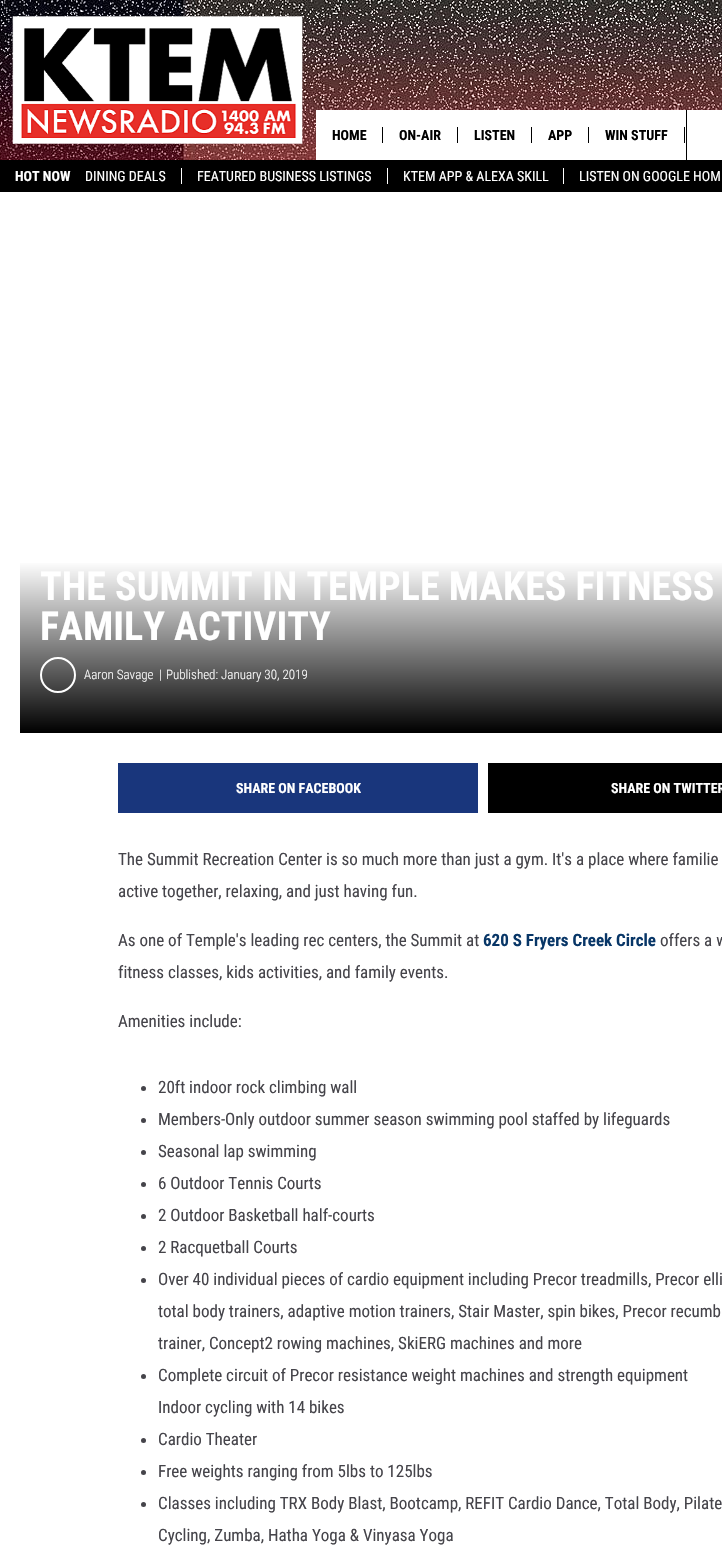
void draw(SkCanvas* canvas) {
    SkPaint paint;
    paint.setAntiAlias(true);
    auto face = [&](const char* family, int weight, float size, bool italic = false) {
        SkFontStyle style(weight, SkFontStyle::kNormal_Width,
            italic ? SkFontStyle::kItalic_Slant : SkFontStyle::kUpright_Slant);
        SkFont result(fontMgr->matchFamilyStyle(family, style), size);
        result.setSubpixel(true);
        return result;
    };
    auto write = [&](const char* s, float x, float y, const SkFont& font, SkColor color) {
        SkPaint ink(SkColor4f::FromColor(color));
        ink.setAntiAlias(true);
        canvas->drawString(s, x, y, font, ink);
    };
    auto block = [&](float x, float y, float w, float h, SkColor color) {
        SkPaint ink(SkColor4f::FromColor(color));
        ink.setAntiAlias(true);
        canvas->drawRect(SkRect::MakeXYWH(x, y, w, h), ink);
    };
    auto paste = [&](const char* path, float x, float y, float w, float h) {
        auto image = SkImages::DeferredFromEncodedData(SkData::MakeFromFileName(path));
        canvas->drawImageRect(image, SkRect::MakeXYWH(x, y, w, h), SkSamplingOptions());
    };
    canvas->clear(SK_ColorWHITE);
    paste("pic1.png", 0, 0, 722, 160);
    paste("pic2.png", 12, 16, 291, 128);
    block(316, 110, 370, 50, SK_ColorWHITE);
    auto kFont1 = face("Roboto Condensed", 700, 14);
    write("HOME", 332, 140, kFont1, SK_ColorBLACK);
    block(382, 127, 1, 16, SK_ColorBLACK);
    write("ON-AIR", 399, 140, kFont1, SK_ColorBLACK);
    block(457, 127, 1, 16, SK_ColorBLACK);
    write("LISTEN", 474, 140, kFont1, SK_ColorBLACK);
    block(531, 127, 1, 16, SK_ColorBLACK);
    write("APP", 548, 140, kFont1, SK_ColorBLACK);
    block(588, 127, 1, 16, SK_ColorBLACK);
    write("WIN STUFF", 605, 140, kFont1, SK_ColorBLACK);
    block(684, 127, 1, 16, SK_ColorBLACK);
    block(687, 110, 35, 50, SK_ColorWHITE);
    block(686, 110, 1, 50, SK_ColorBLACK);
    block(0, 160, 722, 32, SK_ColorBLACK);
    write("HOT NOW", 15, 181, kFont1, SK_ColorWHITE);
    auto kFont2 = face("Roboto Condensed", 400, 14);
    write("DINING DEALS", 85, 181, kFont2, SK_ColorWHITE);
    write("FEATURED BUSINESS LISTINGS", 197, 181, kFont2, SK_ColorWHITE);
    block(181, 168, 1, 16, SK_ColorWHITE);
    write("KTEM APP & ALEXA SKILL", 403, 181, kFont2, SK_ColorWHITE);
    block(387, 168, 1, 16, SK_ColorWHITE);
    write("LISTEN ON GOOGLE HOM", 579, 181, kFont2, SK_ColorWHITE);
    block(563, 168, 1, 16, SK_ColorWHITE);
    {
        const SkColor colors[] = {SK_ColorWHITE, SK_ColorBLACK};
        const float stops[] = {0, 1};
        const SkPoint ends[] = {{483, 561}, {483, 733}};
        paint.setShader(SkGradientShader::MakeLinear(ends, colors, stops, 2, SkTileMode::kClamp));
        paint.setAlpha(255);
    }
    canvas->drawRect(SkRect::MakeXYWH(20, 563, 702, 170), paint);
    auto kFont3 = face("Roboto Condensed", 700, 40);
    write("THE SUMMIT IN TEMPLE MAKES FITNESS", 40, 600, kFont3, SK_ColorWHITE);
    write("FAMILY ACTIVITY", 40, 640, kFont3, SK_ColorWHITE);
    paint.setStyle(SkPaint::kStroke_Style);
    paint.setStrokeWidth(2);
    paint.setShader(nullptr);
    paint.setColor(SK_ColorWHITE);
    canvas->drawCircle(58, 675, 17, paint);
    auto kFont4 = face("Roboto Condensed", 300, 13);
    write("Aaron Savage", 84, 679, kFont4, SK_ColorWHITE);
    write("|", 159, 679, kFont4, SK_ColorWHITE);
    write("Published: January 30, 2019", 166, 679, kFont4, SK_ColorWHITE);
    block(118, 763, 360, 50, SkColorSetRGB(25, 54, 124));
    write("SHARE ON FACEBOOK", 236, 793, kFont1, SK_ColorWHITE);
    block(488, 763, 234, 50, SK_ColorBLACK);
    write("SHARE ON TWITTER", 611, 793, kFont1, SK_ColorWHITE);
    auto kFont5 = face("Roboto Condensed", 400, 17);
    write("The Summit Recreation Center is so much more than just a gym. It's a place where familie", 118, 865, kFont5, SkColorSetRGB(69, 68, 74));
    write("active together, relaxing, and just having fun.", 118, 897, kFont5, SkColorSetRGB(69, 68, 74));
    write("As one of Temple's leading rec centers, the Summit at", 118, 946, kFont5, SkColorSetRGB(69, 68, 74));
    auto kFont6 = face("Roboto Condensed", 700, 17);
    write("620 S Fryers Creek Circle", 483, 946, kFont6, SkColorSetRGB(8, 54, 103));
    write("offers a w", 660, 946, kFont5, SkColorSetRGB(69, 68, 74));
    write("fitness classes, kids activities, and family events.", 118, 978, kFont5, SkColorSetRGB(69, 68, 74));
    write("Amenities include:", 118, 1027, kFont5, SkColorSetRGB(69, 68, 74));
    paint.setStyle(SkPaint::kFill_Style);
    paint.setColor(SkColorSetRGB(69, 68, 74));
    canvas->drawCircle(143.5f, 1088.5f, 2.5f, paint);
    write("20ft indoor rock climbing wall", 158, 1093, kFont5, SkColorSetRGB(69, 68, 74));
    canvas->drawCircle(143.5f, 1120.5f, 2.5f, paint);
    write("Members-Only outdoor summer season swimming pool staffed by lifeguards", 158, 1125, kFont5, SkColorSetRGB(69, 68, 74));
    canvas->drawCircle(143.5f, 1152.5f, 2.5f, paint);
    write("Seasonal lap swimming", 158, 1157, kFont5, SkColorSetRGB(69, 68, 74));
    canvas->drawCircle(143.5f, 1184.5f, 2.5f, paint);
    write("6 Outdoor Tennis Courts", 158, 1189, kFont5, SkColorSetRGB(69, 68, 74));
    canvas->drawCircle(143.5f, 1216.5f, 2.5f, paint);
    write("2 Outdoor Basketball half-courts", 158, 1221, kFont5, SkColorSetRGB(69, 68, 74));
    canvas->drawCircle(143.5f, 1248.5f, 2.5f, paint);
    write("2 Racquetball Courts", 158, 1253, kFont5, SkColorSetRGB(69, 68, 74));
    canvas->drawCircle(143.5f, 1280.5f, 2.5f, paint);
    write("Over 40 individual pieces of cardio equipment including Precor treadmills, Precor elli", 158, 1285, kFont5, SkColorSetRGB(69, 68, 74));
    write("total body trainers, adaptive motion trainers, Stair Master, spin bikes, Precor recumb", 158, 1317, kFont5, SkColorSetRGB(69, 68, 74));
    write("trainer, Concept2 rowing machines, SkiERG machines and more", 158, 1349, kFont5, SkColorSetRGB(69, 68, 74));
    canvas->drawCircle(143.5f, 1376.5f, 2.5f, paint);
    write("Complete circuit of Precor resistance weight machines and strength equipment", 158, 1381, kFont5, SkColorSetRGB(69, 68, 74));
    write("Indoor cycling with 14 bikes", 158, 1413, kFont5, SkColorSetRGB(69, 68, 74));
    canvas->drawCircle(143.5f, 1440.5f, 2.5f, paint);
    write("Cardio Theater", 158, 1445, kFont5, SkColorSetRGB(69, 68, 74));
    canvas->drawCircle(143.5f, 1472.5f, 2.5f, paint);
    write("Free weights ranging from 5lbs to 125lbs", 158, 1477, kFont5, SkColorSetRGB(69, 68, 74));
    canvas->drawCircle(143.5f, 1504.5f, 2.5f, paint);
    write("Classes including TRX Body Blast, Bootcamp, REFIT Cardio Dance, Total Body, Pilate", 158, 1509, kFont5, SkColorSetRGB(69, 68, 74));
    write("Cycling, Zumba, Hatha Yoga & Vinyasa Yoga", 158, 1541, kFont5, SkColorSetRGB(69, 68, 74));
}
